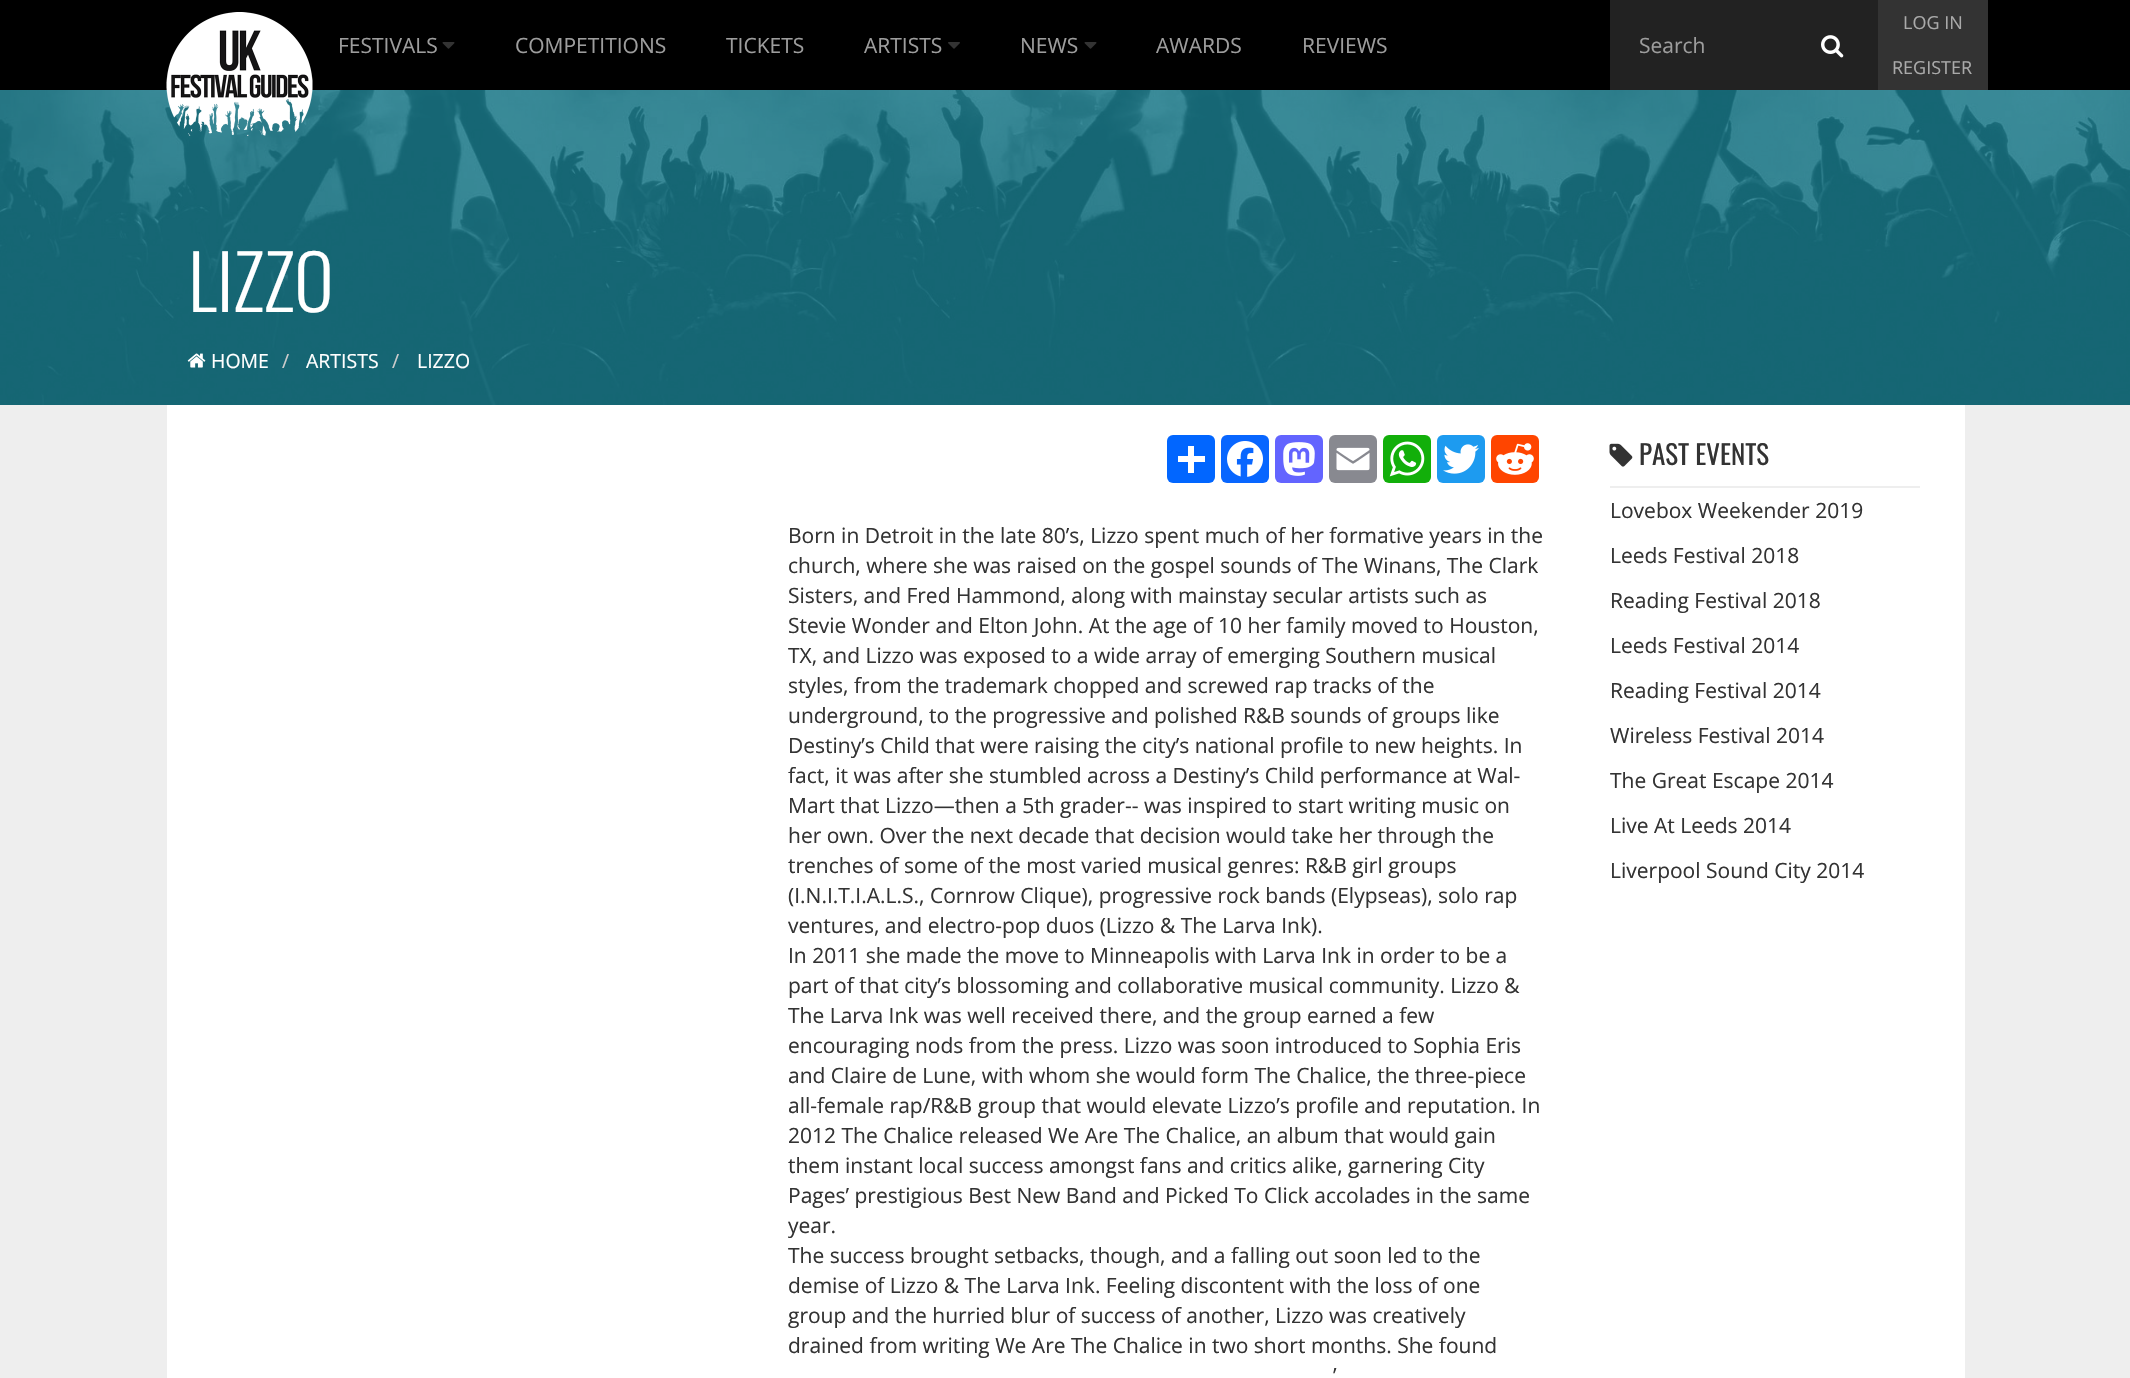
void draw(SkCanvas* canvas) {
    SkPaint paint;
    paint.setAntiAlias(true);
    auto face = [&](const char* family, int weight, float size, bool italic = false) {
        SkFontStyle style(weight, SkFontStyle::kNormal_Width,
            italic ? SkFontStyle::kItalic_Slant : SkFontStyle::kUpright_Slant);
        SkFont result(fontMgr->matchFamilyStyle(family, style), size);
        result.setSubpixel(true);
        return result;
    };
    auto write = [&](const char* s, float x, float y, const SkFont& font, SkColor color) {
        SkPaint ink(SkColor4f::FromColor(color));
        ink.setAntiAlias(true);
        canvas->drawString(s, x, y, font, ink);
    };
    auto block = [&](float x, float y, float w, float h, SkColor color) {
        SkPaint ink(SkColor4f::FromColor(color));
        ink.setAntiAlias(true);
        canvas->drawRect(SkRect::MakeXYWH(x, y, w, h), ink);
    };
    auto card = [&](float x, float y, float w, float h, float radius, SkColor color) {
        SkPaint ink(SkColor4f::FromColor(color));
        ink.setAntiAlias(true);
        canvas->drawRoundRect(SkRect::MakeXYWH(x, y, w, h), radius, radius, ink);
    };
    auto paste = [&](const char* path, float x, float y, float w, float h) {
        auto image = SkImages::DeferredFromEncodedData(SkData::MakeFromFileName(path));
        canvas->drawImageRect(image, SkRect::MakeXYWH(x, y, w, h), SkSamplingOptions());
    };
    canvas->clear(SkColorSetRGB(238, 238, 238));
    block(0, 0, 2130, 90, SK_ColorBLACK);
    paste("pic5.png", 0, 90, 2130, 315);
    paste("pic1.png", 166, 12, 147, 124);
    auto kFont1 = face("Open Sans", 400, 21);
    write("FESTIVALS", 338, 53, kFont1, SkColorSetRGB(157, 157, 157));
    paste("pic2.png", 442, 42, 13, 7);
    write("COMPETITIONS", 515, 53, kFont1, SkColorSetRGB(157, 157, 157));
    write("TICKETS", 726, 53, kFont1, SkColorSetRGB(157, 157, 157));
    write("ARTISTS", 864, 53, kFont1, SkColorSetRGB(157, 157, 157));
    paste("pic3.png", 948, 42, 12, 7);
    write("NEWS", 1020, 53, kFont1, SkColorSetRGB(157, 157, 157));
    paste("pic2.png", 1084, 42, 13, 7);
    write("AWARDS", 1156, 53, kFont1, SkColorSetRGB(157, 157, 157));
    write("REVIEWS", 1302, 53, kFont1, SkColorSetRGB(157, 157, 157));
    block(1610, 0, 268, 90, SkColorSetRGB(34, 34, 34));
    paste("pic4.png", 1821, 35, 23, 23);
    write("Search", 1639, 53, kFont1, SkColorSetRGB(157, 157, 157));
    block(1878, 0, 110, 90, SkColorSetRGB(51, 51, 51));
    auto kFont2 = face("Open Sans", 400, 18);
    write("LOG IN", 1903, 29, kFont2, SkColorSetRGB(170, 170, 170));
    write("REGISTER", 1892, 74, kFont2, SkColorSetRGB(170, 170, 170));
    auto kFont3 = face("Oswald", 300, 75);
    write("LIZZO", 188, 312, kFont3, SK_ColorWHITE);
    paste("pic6.png", 187, 353, 19, 15);
    auto kFont4 = face("Open Sans", 400, 19.5f);
    write("HOME", 211, 368, kFont4, SK_ColorWHITE);
    write("/", 282, 368, kFont4, SkColorSetRGB(204, 204, 204));
    write("ARTISTS", 306, 368, kFont4, SK_ColorWHITE);
    write("/", 392, 368, kFont4, SkColorSetRGB(204, 204, 204));
    write("LIZZO", 417, 368, kFont4, SK_ColorWHITE);
    block(167, 405, 1798, 973, SK_ColorWHITE);
    card(1167, 435, 48, 48, 6, SkColorSetRGB(1, 102, 255));
    block(1188, 446, 6, 27, SK_ColorWHITE);
    block(1178, 456, 27, 6, SK_ColorWHITE);
    card(1221, 435, 48, 48, 6, SkColorSetRGB(8, 102, 255));
    paste("pic7.png", 1227, 441, 36, 36);
    card(1275, 435, 48, 48, 6, SkColorSetRGB(99, 100, 255));
    paste("pic8.png", 1283, 442, 32, 34);
    card(1329, 435, 48, 48, 6, SkColorSetRGB(136, 137, 144));
    paste("pic9.png", 1336, 447, 34, 24);
    card(1383, 435, 48, 48, 6, SkColorSetRGB(18, 175, 10));
    paste("pic10.png", 1389, 441, 36, 36);
    card(1437, 435, 48, 48, 6, SkColorSetRGB(29, 155, 240));
    paste("pic11.png", 1443, 444, 36, 30);
    card(1491, 435, 48, 48, 6, SkColorSetRGB(255, 69, 0));
    paste("pic12.png", 1496, 443, 38, 32);
    write("Born in Detroit in the late 80’s, Lizzo spent much of her formative years in the", 788, 543, kFont1, SkColorSetRGB(51, 51, 51));
    write("church, where she was raised on the gospel sounds of The Winans, The Clark", 788, 573, kFont1, SkColorSetRGB(51, 51, 51));
    write("Sisters, and Fred Hammond, along with mainstay secular artists such as", 788, 603, kFont1, SkColorSetRGB(51, 51, 51));
    write("Stevie Wonder and Elton John. At the age of 10 her family moved to Houston,", 788, 633, kFont1, SkColorSetRGB(51, 51, 51));
    write("TX, and Lizzo was exposed to a wide array of emerging Southern musical", 788, 663, kFont1, SkColorSetRGB(51, 51, 51));
    write("styles, from the trademark chopped and screwed rap tracks of the", 788, 693, kFont1, SkColorSetRGB(51, 51, 51));
    write("underground, to the progressive and polished R&B sounds of groups like", 788, 723, kFont1, SkColorSetRGB(51, 51, 51));
    write("Destiny’s Child that were raising the city’s national profile to new heights. In", 788, 753, kFont1, SkColorSetRGB(51, 51, 51));
    write("fact, it was after she stumbled across a Destiny’s Child performance at Wal-", 788, 783, kFont1, SkColorSetRGB(51, 51, 51));
    write("Mart that Lizzo—then a 5th grader-- was inspired to start writing music on", 788, 813, kFont1, SkColorSetRGB(51, 51, 51));
    write("her own. Over the next decade that decision would take her through the", 788, 843, kFont1, SkColorSetRGB(51, 51, 51));
    write("trenches of some of the most varied musical genres: R&B girl groups", 788, 873, kFont1, SkColorSetRGB(51, 51, 51));
    write("(I.N.I.T.I.A.L.S., Cornrow Clique), progressive rock bands (Elypseas), solo rap", 788, 903, kFont1, SkColorSetRGB(51, 51, 51));
    write("ventures, and electro-pop duos (Lizzo & The Larva Ink).", 788, 933, kFont1, SkColorSetRGB(51, 51, 51));
    write("In 2011 she made the move to Minneapolis with Larva Ink in order to be a", 788, 963, kFont1, SkColorSetRGB(51, 51, 51));
    write("part of that city’s blossoming and collaborative musical community. Lizzo &", 788, 993, kFont1, SkColorSetRGB(51, 51, 51));
    write("The Larva Ink was well received there, and the group earned a few", 788, 1023, kFont1, SkColorSetRGB(51, 51, 51));
    write("encouraging nods from the press. Lizzo was soon introduced to Sophia Eris", 788, 1053, kFont1, SkColorSetRGB(51, 51, 51));
    write("and Claire de Lune, with whom she would form The Chalice, the three-piece", 788, 1083, kFont1, SkColorSetRGB(51, 51, 51));
    write("all-female rap/R&B group that would elevate Lizzo’s profile and reputation. In", 788, 1113, kFont1, SkColorSetRGB(51, 51, 51));
    write("2012 The Chalice released We Are The Chalice, an album that would gain", 788, 1143, kFont1, SkColorSetRGB(51, 51, 51));
    write("them instant local success amongst fans and critics alike, garnering City", 788, 1173, kFont1, SkColorSetRGB(51, 51, 51));
    write("Pages’ prestigious Best New Band and Picked To Click accolades in the same", 788, 1203, kFont1, SkColorSetRGB(51, 51, 51));
    write("year.", 788, 1233, kFont1, SkColorSetRGB(51, 51, 51));
    write("The success brought setbacks, though, and a falling out soon led to the", 788, 1263, kFont1, SkColorSetRGB(51, 51, 51));
    write("demise of Lizzo & The Larva Ink. Feeling discontent with the loss of one", 788, 1293, kFont1, SkColorSetRGB(51, 51, 51));
    write("group and the hurried blur of success of another, Lizzo was creatively", 788, 1323, kFont1, SkColorSetRGB(51, 51, 51));
    write("drained from writing We Are The Chalice in two short months. She found", 788, 1353, kFont1, SkColorSetRGB(51, 51, 51));
    write("’", 1333, 1383, kFont1, SkColorSetRGB(51, 51, 51));
    paste("pic13.png", 1609, 443, 24, 24);
    auto kFont5 = face("Oswald", 400, 27);
    write("PAST EVENTS", 1639, 465, kFont5, SkColorSetRGB(51, 51, 51));
    block(1610, 486, 310, 2, SkColorSetRGB(238, 238, 238));
    write("Lovebox Weekender 2019", 1610, 518, kFont1, SkColorSetRGB(51, 51, 51));
    write("Leeds Festival 2018", 1610, 563, kFont1, SkColorSetRGB(51, 51, 51));
    write("Reading Festival 2018", 1610, 608, kFont1, SkColorSetRGB(51, 51, 51));
    write("Leeds Festival 2014", 1610, 653, kFont1, SkColorSetRGB(51, 51, 51));
    write("Reading Festival 2014", 1610, 698, kFont1, SkColorSetRGB(51, 51, 51));
    write("Wireless Festival 2014", 1610, 743, kFont1, SkColorSetRGB(51, 51, 51));
    write("The Great Escape 2014", 1610, 788, kFont1, SkColorSetRGB(51, 51, 51));
    write("Live At Leeds 2014", 1610, 833, kFont1, SkColorSetRGB(51, 51, 51));
    write("Liverpool Sound City 2014", 1610, 878, kFont1, SkColorSetRGB(51, 51, 51));
}
